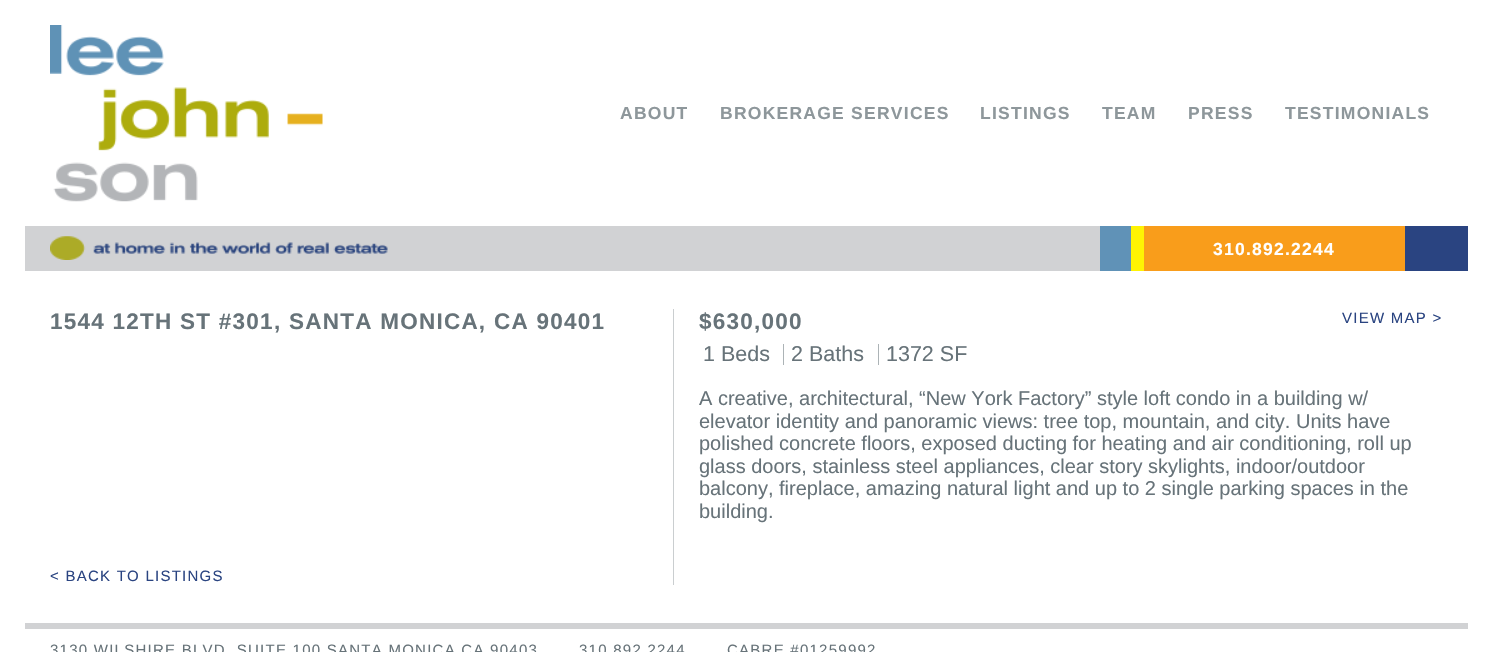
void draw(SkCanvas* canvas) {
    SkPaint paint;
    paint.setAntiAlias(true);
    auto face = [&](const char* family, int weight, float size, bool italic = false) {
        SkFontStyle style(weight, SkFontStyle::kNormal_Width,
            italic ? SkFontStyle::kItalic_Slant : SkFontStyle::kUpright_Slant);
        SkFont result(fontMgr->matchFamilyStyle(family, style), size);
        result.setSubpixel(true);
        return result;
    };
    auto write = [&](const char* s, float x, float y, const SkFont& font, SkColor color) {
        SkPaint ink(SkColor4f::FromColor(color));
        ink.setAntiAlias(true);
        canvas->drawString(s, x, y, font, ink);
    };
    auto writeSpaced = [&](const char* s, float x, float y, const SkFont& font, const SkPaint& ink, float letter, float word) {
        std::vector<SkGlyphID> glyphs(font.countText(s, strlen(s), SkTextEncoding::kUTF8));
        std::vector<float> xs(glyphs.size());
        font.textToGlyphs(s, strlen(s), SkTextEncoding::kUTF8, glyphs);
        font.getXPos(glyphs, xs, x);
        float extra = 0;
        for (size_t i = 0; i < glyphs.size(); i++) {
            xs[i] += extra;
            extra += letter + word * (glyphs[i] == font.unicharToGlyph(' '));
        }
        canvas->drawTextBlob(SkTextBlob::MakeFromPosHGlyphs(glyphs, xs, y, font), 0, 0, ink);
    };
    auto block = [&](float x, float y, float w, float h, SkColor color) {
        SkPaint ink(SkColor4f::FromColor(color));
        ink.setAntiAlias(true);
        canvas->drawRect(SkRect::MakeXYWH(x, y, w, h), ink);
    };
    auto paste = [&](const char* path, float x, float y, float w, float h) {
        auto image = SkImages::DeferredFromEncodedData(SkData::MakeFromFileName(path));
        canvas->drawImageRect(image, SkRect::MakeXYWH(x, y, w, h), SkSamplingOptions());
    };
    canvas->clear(SK_ColorWHITE);
    paste("pic1.png", 50, 25, 273, 177);
    auto kFont1 = face("Liberation Sans", 700, 17.5f);
    paint.setColor(SkColorSetRGB(142, 151, 155));
    writeSpaced("ABOUT", 620, 119, kFont1, paint, 1.25f, 0);
    writeSpaced("BROKERAGE SERVICES", 720, 119, kFont1, paint, 1.25f, 0);
    writeSpaced("LISTINGS", 980, 119, kFont1, paint, 1.25f, 0);
    writeSpaced("TEAM", 1102, 119, kFont1, paint, 1.25f, 0);
    writeSpaced("PRESS", 1188, 119, kFont1, paint, 1.25f, 0);
    writeSpaced("TESTIMONIALS", 1285, 119, kFont1, paint, 1.25f, 0);
    block(25, 226, 1075, 45, SkColorSetRGB(209, 210, 212));
    paste("pic2.png", 50, 236, 338, 24);
    block(1100, 226, 31, 45, SkColorSetRGB(96, 146, 183));
    block(1131, 226, 13, 45, SkColorSetRGB(255, 243, 3));
    block(1144, 226, 261, 45, SkColorSetRGB(249, 157, 27));
    paint.setColor(SK_ColorWHITE);
    writeSpaced("310.892.2244", 1213, 255, kFont1, paint, 1.25f, 0);
    block(1405, 226, 63, 45, SkColorSetRGB(42, 68, 129));
    block(673, 309, 1, 276, SkColorSetRGB(202, 206, 208));
    auto kFont2 = face("Liberation Sans", 700, 22.5f);
    paint.setColor(SkColorSetRGB(103, 115, 121));
    writeSpaced("1544 12TH ST #301, SANTA MONICA, CA 90401", 50, 329, kFont2, paint, 1.25f, 0);
    writeSpaced("$630,000", 699, 329, kFont2, paint, 1.25f, 0);
    auto kFont3 = face("Liberation Sans", 400, 15);
    paint.setColor(SkColorSetRGB(42, 68, 129));
    writeSpaced("VIEW MAP >", 1342, 323, kFont3, paint, 1.25f, 0);
    auto kFont4 = face("Liberation Sans", 400, 21.5f);
    write("1 Beds", 703, 361, kFont4, SkColorSetRGB(103, 115, 121));
    block(783, 344, 1, 21, SkColorSetRGB(172, 179, 182));
    write("2 Baths", 791, 361, kFont4, SkColorSetRGB(103, 115, 121));
    block(878, 344, 1, 21, SkColorSetRGB(172, 179, 182));
    write("1372 SF", 886, 361, kFont4, SkColorSetRGB(103, 115, 121));
    auto kFont5 = face("Liberation Sans", 400, 20);
    write("A creative, architectural, “New York Factory” style loft condo in a building w/", 699, 405, kFont5, SkColorSetRGB(103, 115, 121));
    write("elevator identity and panoramic views: tree top, mountain, and city. Units have", 699, 428, kFont5, SkColorSetRGB(103, 115, 121));
    write("polished concrete floors, exposed ducting for heating and air conditioning, roll up", 699, 450, kFont5, SkColorSetRGB(103, 115, 121));
    write("glass doors, stainless steel appliances, clear story skylights, indoor/outdoor", 699, 473, kFont5, SkColorSetRGB(103, 115, 121));
    write("balcony, fireplace, amazing natural light and up to 2 single parking spaces in the", 699, 495, kFont5, SkColorSetRGB(103, 115, 121));
    write("building.", 699, 518, kFont5, SkColorSetRGB(103, 115, 121));
    writeSpaced("< BACK TO LISTINGS", 50, 581, kFont3, paint, 1.25f, 0);
    block(25, 623, 1443, 6, SkColorSetRGB(209, 210, 212));
    paint.setColor(SkColorSetRGB(103, 115, 121));
    writeSpaced("3130 WILSHIRE BLVD, SUITE 100 SANTA MONICA CA 90403", 50, 655, kFont3, paint, 1.25f, 0);
    writeSpaced("310.892.2244", 579, 655, kFont3, paint, 1.25f, 0);
    writeSpaced("CABRE #01259992", 727, 655, kFont3, paint, 1.25f, 0);
}
